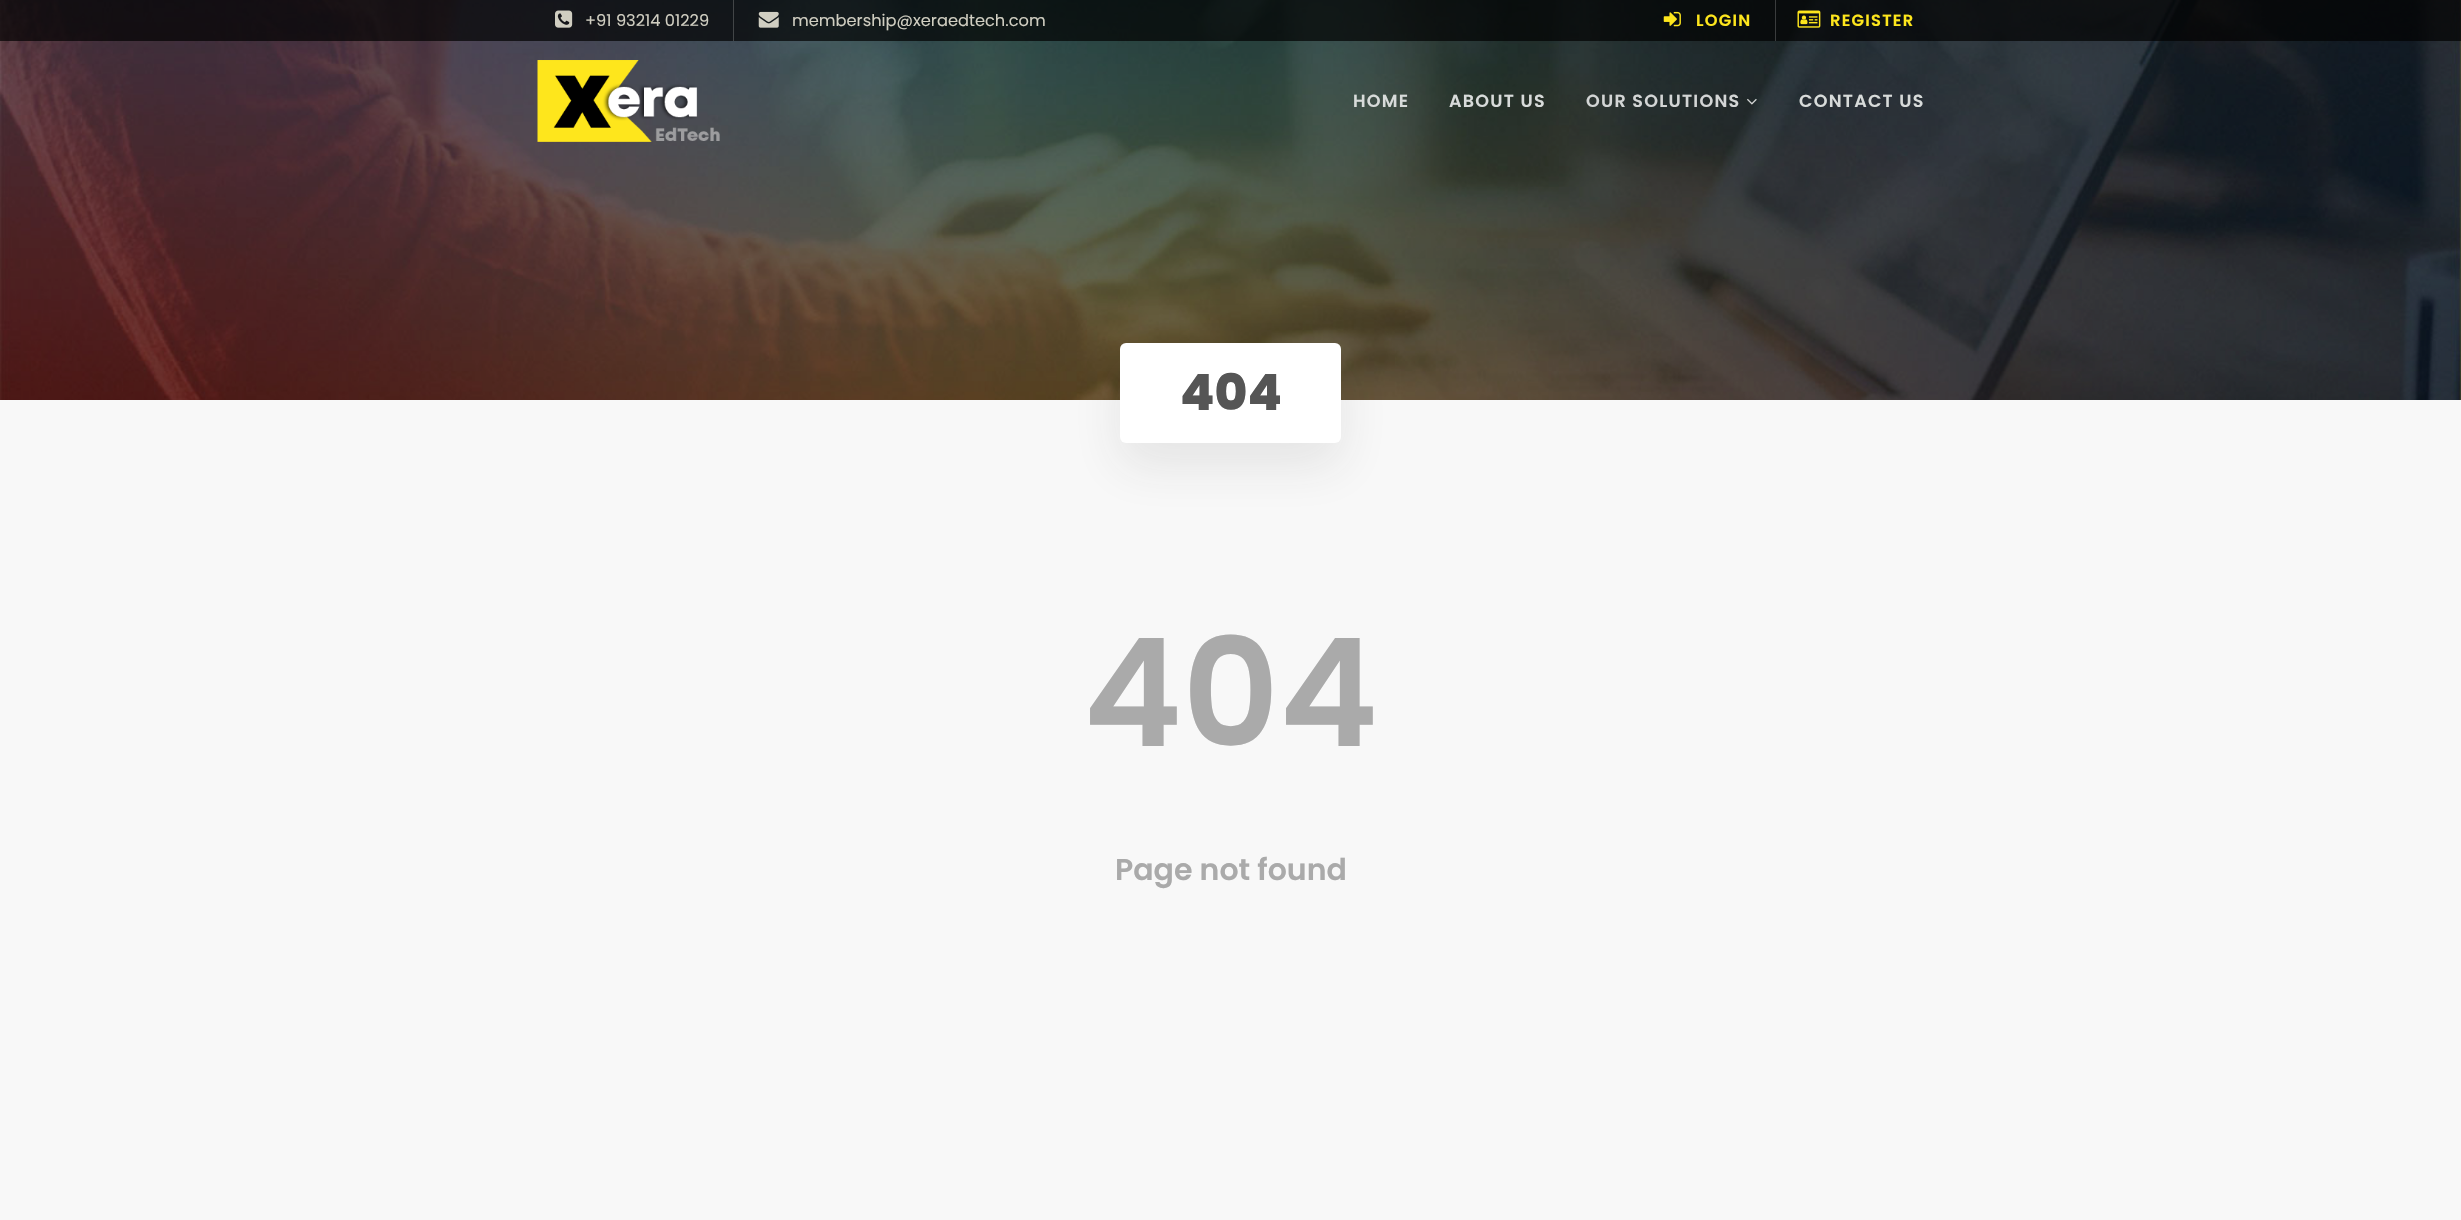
void draw(SkCanvas* canvas) {
    SkPaint paint;
    paint.setAntiAlias(true);
    auto face = [&](const char* family, int weight, float size, bool italic = false) {
        SkFontStyle style(weight, SkFontStyle::kNormal_Width,
            italic ? SkFontStyle::kItalic_Slant : SkFontStyle::kUpright_Slant);
        SkFont result(fontMgr->matchFamilyStyle(family, style), size);
        result.setSubpixel(true);
        return result;
    };
    auto write = [&](const char* s, float x, float y, const SkFont& font, SkColor color) {
        SkPaint ink(SkColor4f::FromColor(color));
        ink.setAntiAlias(true);
        canvas->drawString(s, x, y, font, ink);
    };
    auto writeSpaced = [&](const char* s, float x, float y, const SkFont& font, const SkPaint& ink, float letter, float word) {
        std::vector<SkGlyphID> glyphs(font.countText(s, strlen(s), SkTextEncoding::kUTF8));
        std::vector<float> xs(glyphs.size());
        font.textToGlyphs(s, strlen(s), SkTextEncoding::kUTF8, glyphs);
        font.getXPos(glyphs, xs, x);
        float extra = 0;
        for (size_t i = 0; i < glyphs.size(); i++) {
            xs[i] += extra;
            extra += letter + word * (glyphs[i] == font.unicharToGlyph(' '));
        }
        canvas->drawTextBlob(SkTextBlob::MakeFromPosHGlyphs(glyphs, xs, y, font), 0, 0, ink);
    };
    auto block = [&](float x, float y, float w, float h, SkColor color) {
        SkPaint ink(SkColor4f::FromColor(color));
        ink.setAntiAlias(true);
        canvas->drawRect(SkRect::MakeXYWH(x, y, w, h), ink);
    };
    auto card = [&](float x, float y, float w, float h, float radius, SkColor color) {
        SkPaint ink(SkColor4f::FromColor(color));
        ink.setAntiAlias(true);
        canvas->drawRoundRect(SkRect::MakeXYWH(x, y, w, h), radius, radius, ink);
    };
    auto paste = [&](const char* path, float x, float y, float w, float h) {
        auto image = SkImages::DeferredFromEncodedData(SkData::MakeFromFileName(path));
        canvas->drawImageRect(image, SkRect::MakeXYWH(x, y, w, h), SkSamplingOptions());
    };
    canvas->clear(SkColorSetRGB(248, 248, 248));
    paste("pic1.png", 0, 0, 2461, 400);
    block(0, 0, 2461, 41, SkColorSetARGB(179, 0, 0, 0));
    paste("pic2.png", 555, 10, 18, 18);
    auto kFont1 = face("Poppins", 400, 16.25f);
    write("+91 93214 01229", 585, 26, kFont1, SkColorSetRGB(208, 206, 193));
    block(733, 0, 1, 41, SkColorSetRGB(66, 69, 71));
    paste("pic3.png", 758, 11, 21, 17);
    write("membership@xeraedtech.com", 792, 26, kFont1, SkColorSetRGB(208, 206, 193));
    paste("pic4.png", 1663, 11, 18, 16);
    auto kFont2 = face("Poppins", 600, 16.25f);
    paint.setColor(SkColorSetRGB(254, 230, 28));
    writeSpaced("LOGIN", 1696, 26, kFont2, paint, 1.25f, 0);
    block(1775, 0, 1, 41, SkColorSetRGB(58, 60, 61));
    paste("pic5.png", 1797, 10, 24, 18);
    writeSpaced("REGISTER", 1830, 26, kFont2, paint, 1.25f, 0);
    paste("pic6.png", 537, 60, 183, 82);
    auto kFont3 = face("Poppins", 600, 17.5f);
    paint.setColor(SkColorSetRGB(216, 219, 218));
    writeSpaced("HOME", 1353, 107, kFont3, paint, 1.25f, 0);
    writeSpaced("ABOUT US", 1449, 107, kFont3, paint, 1.25f, 0);
    paint.setColor(SkColorSetRGB(211, 213, 213));
    writeSpaced("OUR SOLUTIONS", 1586, 107, kFont3, paint, 1.25f, 0);
    paste("pic7.png", 1747, 98, 10, 7);
    paint.setColor(SkColorSetRGB(216, 219, 218));
    writeSpaced("CONTACT US", 1799, 107, kFont3, paint, 1.25f, 0);
    paint.setColor(SkColorSetARGB(26, 51, 51, 51));
    paint.setMaskFilter(SkMaskFilter::MakeBlur(kNormal_SkBlurStyle, 25));
    canvas->drawRoundRect(SkRect::MakeXYWH(1120, 365, 221, 100), 6, 6, paint);
    paint.setMaskFilter(nullptr);
    card(1120, 343, 221, 100, 6, SK_ColorWHITE);
    auto kFont4 = face("Poppins", 800, 50);
    write("404", 1180, 410, kFont4, SkColorSetRGB(85, 85, 85));
    auto kFont5 = face("Poppins", 600, 150);
    write("404", 1083, 746, kFont5, SkColorSetRGB(170, 170, 170));
    auto kFont6 = face("Poppins", 600, 30);
    write("Page not found", 1115, 880, kFont6, SkColorSetRGB(170, 170, 170));
}
